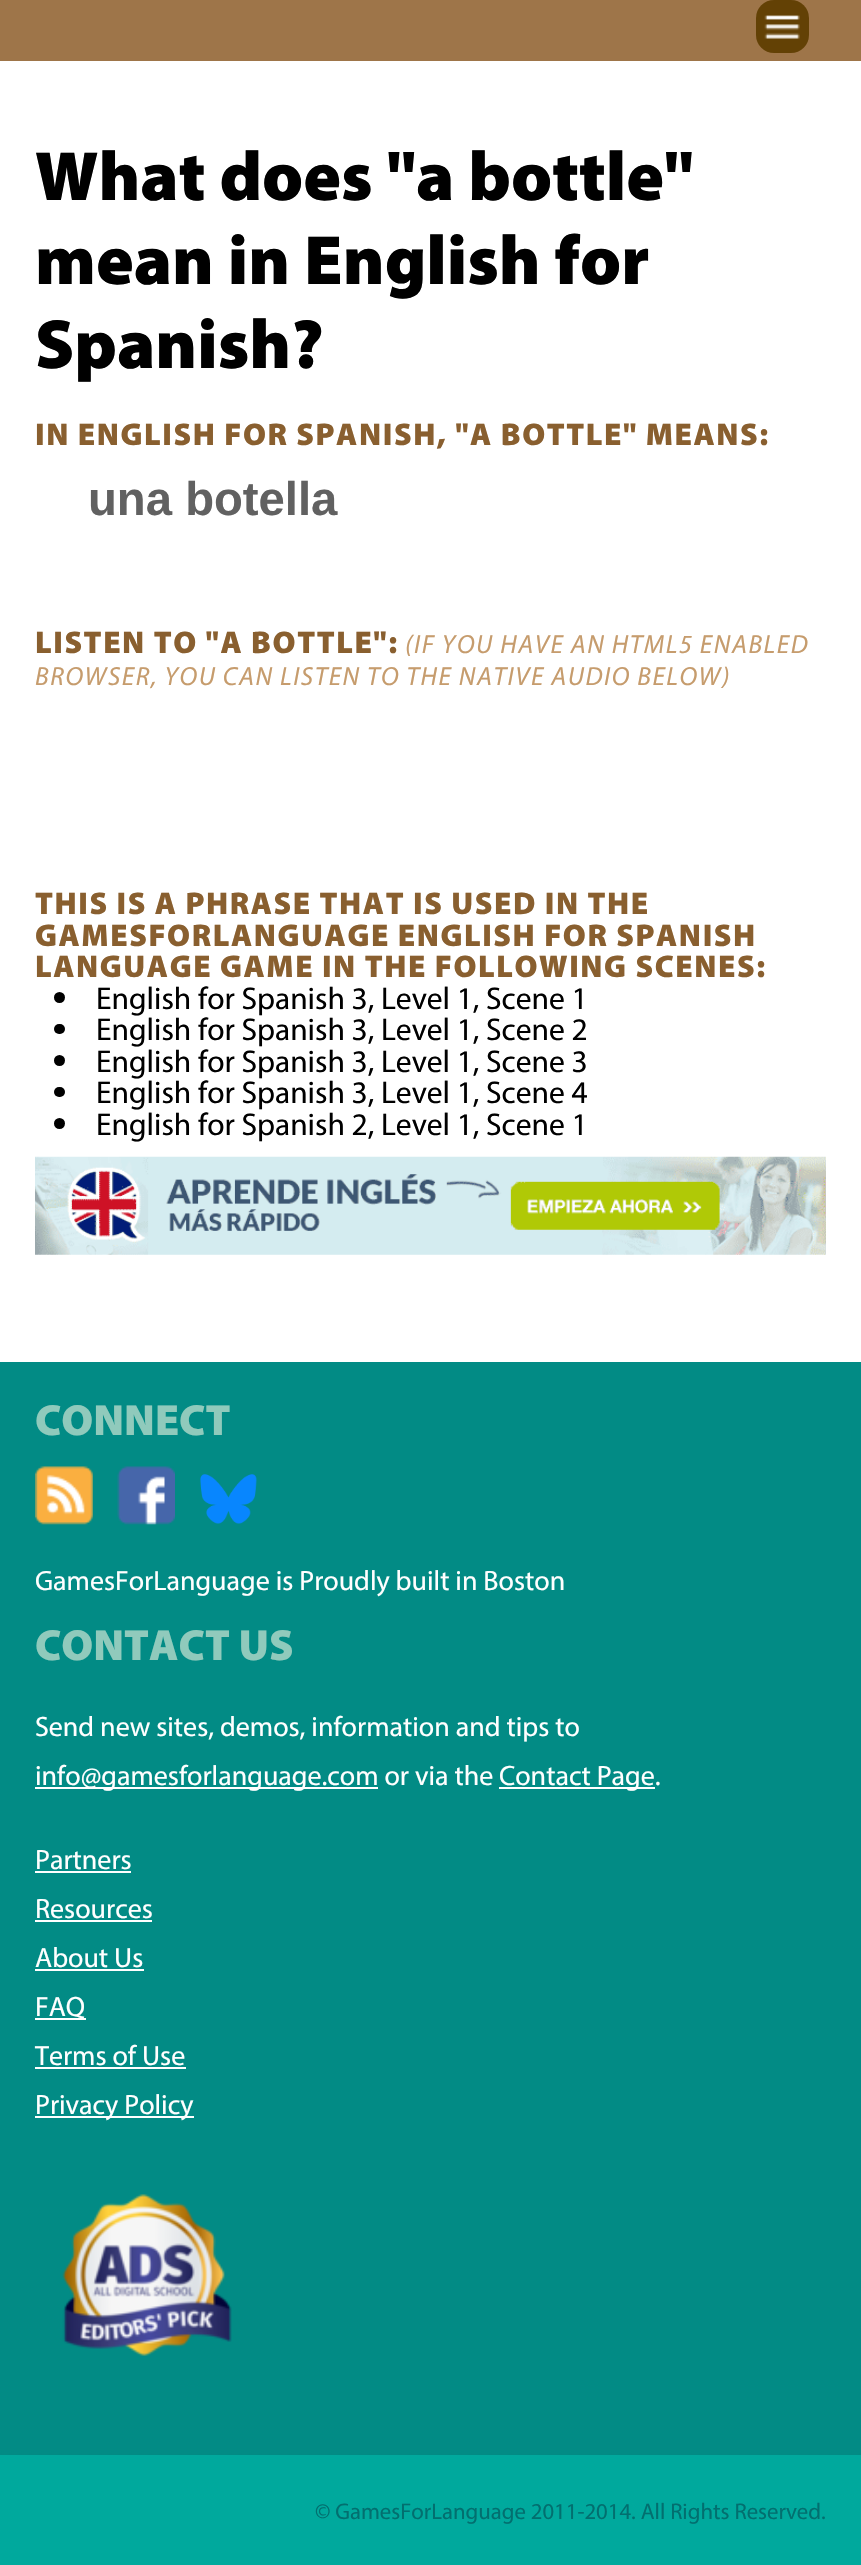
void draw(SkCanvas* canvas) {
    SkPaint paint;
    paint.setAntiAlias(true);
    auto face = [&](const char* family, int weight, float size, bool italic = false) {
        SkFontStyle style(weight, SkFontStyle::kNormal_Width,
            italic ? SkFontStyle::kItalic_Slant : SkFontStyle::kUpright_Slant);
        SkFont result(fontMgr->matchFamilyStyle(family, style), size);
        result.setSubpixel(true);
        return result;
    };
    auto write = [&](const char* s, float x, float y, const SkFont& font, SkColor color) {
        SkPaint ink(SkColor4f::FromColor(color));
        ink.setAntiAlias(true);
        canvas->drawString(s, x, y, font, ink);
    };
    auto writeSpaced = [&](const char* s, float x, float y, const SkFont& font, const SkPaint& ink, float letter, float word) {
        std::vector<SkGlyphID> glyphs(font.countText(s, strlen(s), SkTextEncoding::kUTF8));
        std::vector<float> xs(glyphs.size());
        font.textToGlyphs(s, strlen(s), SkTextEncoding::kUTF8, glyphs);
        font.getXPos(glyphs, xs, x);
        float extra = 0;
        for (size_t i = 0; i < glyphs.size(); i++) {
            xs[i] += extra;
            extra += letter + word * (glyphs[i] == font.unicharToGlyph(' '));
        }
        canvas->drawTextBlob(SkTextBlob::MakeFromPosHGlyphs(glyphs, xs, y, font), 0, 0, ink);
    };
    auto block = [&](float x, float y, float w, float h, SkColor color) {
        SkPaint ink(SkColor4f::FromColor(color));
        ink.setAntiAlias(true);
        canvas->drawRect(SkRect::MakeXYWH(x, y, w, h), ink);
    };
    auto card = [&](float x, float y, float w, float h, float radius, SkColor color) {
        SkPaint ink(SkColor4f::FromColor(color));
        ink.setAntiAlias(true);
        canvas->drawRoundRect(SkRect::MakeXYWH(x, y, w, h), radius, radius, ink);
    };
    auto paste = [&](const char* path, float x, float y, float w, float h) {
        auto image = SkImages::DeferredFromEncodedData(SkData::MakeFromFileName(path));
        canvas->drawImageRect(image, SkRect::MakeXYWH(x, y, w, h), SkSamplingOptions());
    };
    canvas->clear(SK_ColorWHITE);
    block(0, 0, 861, 61, SkColorSetRGB(158, 117, 73));
    card(756, 0, 53, 53, 18, SkColorSetRGB(99, 65, 5));
    paste("pic1.png", 764, 15, 36, 24);
    auto kFont1 = face("Myriad", 900, 70);
    write("What does \"a bottle\"", 35, 200, kFont1, SK_ColorBLACK);
    write("mean in English for", 35, 284, kFont1, SK_ColorBLACK);
    write("Spanish?", 35, 368, kFont1, SK_ColorBLACK);
    auto kFont2 = face("Myriad", 900, 31.5f);
    paint.setColor(SkColorSetRGB(137, 95, 47));
    writeSpaced("IN ENGLISH FOR SPANISH, \"A BOTTLE\" MEANS:", 35, 445, kFont2, paint, 1.57f, 0);
    auto kFont3 = face("Liberation Sans", 700, 47.25f);
    write("una botella", 88, 515, kFont3, SkColorSetRGB(97, 97, 97));
    writeSpaced("LISTEN TO \"A BOTTLE\":", 35, 653, kFont2, paint, 1.57f, 0);
    auto kFont4 = face("Myriad", 400, 26.25f, true);
    paint.setColor(SkColorSetRGB(198, 156, 109));
    writeSpaced("(IF YOU HAVE AN HTML5 ENABLED", 405, 653, kFont4, paint, 1.57f, 0);
    writeSpaced("BROWSER, YOU CAN LISTEN TO THE NATIVE AUDIO BELOW)", 35, 685, kFont4, paint, 1.57f, 0);
    paint.setColor(SkColorSetRGB(137, 95, 47));
    writeSpaced("THIS IS A PHRASE THAT IS USED IN THE", 35, 914, kFont2, paint, 1.57f, 0);
    writeSpaced("GAMESFORLANGUAGE ENGLISH FOR SPANISH", 35, 946, kFont2, paint, 1.57f, 0);
    writeSpaced("LANGUAGE GAME IN THE FOLLOWING SCENES:", 35, 977, kFont2, paint, 1.57f, 0);
    paint.setColor(SK_ColorBLACK);
    canvas->drawCircle(59.5f, 997.5f, 5.5f, paint);
    auto kFont5 = face("Myriad", 400, 31.5f);
    write("English for Spanish 3, Level 1, Scene 1", 96, 1009, kFont5, SK_ColorBLACK);
    card(54, 1024, 11, 10, 5, SK_ColorBLACK);
    write("English for Spanish 3, Level 1, Scene 2", 96, 1040, kFont5, SK_ColorBLACK);
    canvas->drawCircle(59.5f, 1060.5f, 5.5f, paint);
    write("English for Spanish 3, Level 1, Scene 3", 96, 1072, kFont5, SK_ColorBLACK);
    card(54, 1087, 11, 10, 5, SK_ColorBLACK);
    write("English for Spanish 3, Level 1, Scene 4", 96, 1103, kFont5, SK_ColorBLACK);
    canvas->drawCircle(59.5f, 1123.5f, 5.5f, paint);
    write("English for Spanish 2, Level 1, Scene 1", 96, 1135, kFont5, SK_ColorBLACK);
    paste("pic2.png", 35, 1156, 791, 99);
    block(0, 1362, 861, 1093, SkColorSetRGB(2, 139, 133));
    auto kFont6 = face("Myriad", 900, 43.75f);
    write("CONNECT", 35, 1435, kFont6, SkColorSetRGB(144, 202, 188));
    paste("pic3.png", 35, 1466, 58, 59);
    paste("pic4.png", 117, 1466, 58, 59);
    paste("pic5.png", 200, 1474, 57, 50);
    auto kFont7 = face("Myriad", 400, 28);
    write("GamesForLanguage is Proudly built in Boston", 35, 1590, kFont7, SK_ColorWHITE);
    write("CONTACT US", 35, 1660, kFont6, SkColorSetRGB(144, 202, 188));
    write("Send new sites, demos, information and tips to", 35, 1736, kFont7, SK_ColorWHITE);
    block(35, 1787, 343, 2, SK_ColorWHITE);
    write("info@gamesforlanguage.com or via the", 35, 1785, kFont7, SK_ColorWHITE);
    block(499, 1787, 156, 2, SK_ColorWHITE);
    write("Contact Page.", 499, 1785, kFont7, SK_ColorWHITE);
    write("Partners", 35, 1869, kFont7, SK_ColorWHITE);
    block(35, 1871, 96, 2, SK_ColorWHITE);
    write("Resources", 35, 1918, kFont7, SK_ColorWHITE);
    block(35, 1920, 117, 2, SK_ColorWHITE);
    write("About Us", 35, 1967, kFont7, SK_ColorWHITE);
    block(35, 1969, 109, 2, SK_ColorWHITE);
    block(35, 2018, 51, 2, SK_ColorWHITE);
    write("FAQ", 35, 2016, kFont7, SK_ColorWHITE);
    write("Terms of Use", 35, 2065, kFont7, SK_ColorWHITE);
    block(35, 2067, 151, 2, SK_ColorWHITE);
    block(35, 2116, 159, 2, SK_ColorWHITE);
    write("Privacy Policy", 35, 2114, kFont7, SK_ColorWHITE);
    paste("pic6.png", 62, 2194, 170, 162);
    block(0, 2455, 861, 110, SkColorSetRGB(0, 169, 157));
    auto kFont8 = face("Myriad", 400, 22.75f);
    write("© GamesForLanguage 2011-2014. All Rights Reserved.", 315, 2519, kFont8, SkColorSetRGB(2, 111, 111));
}
